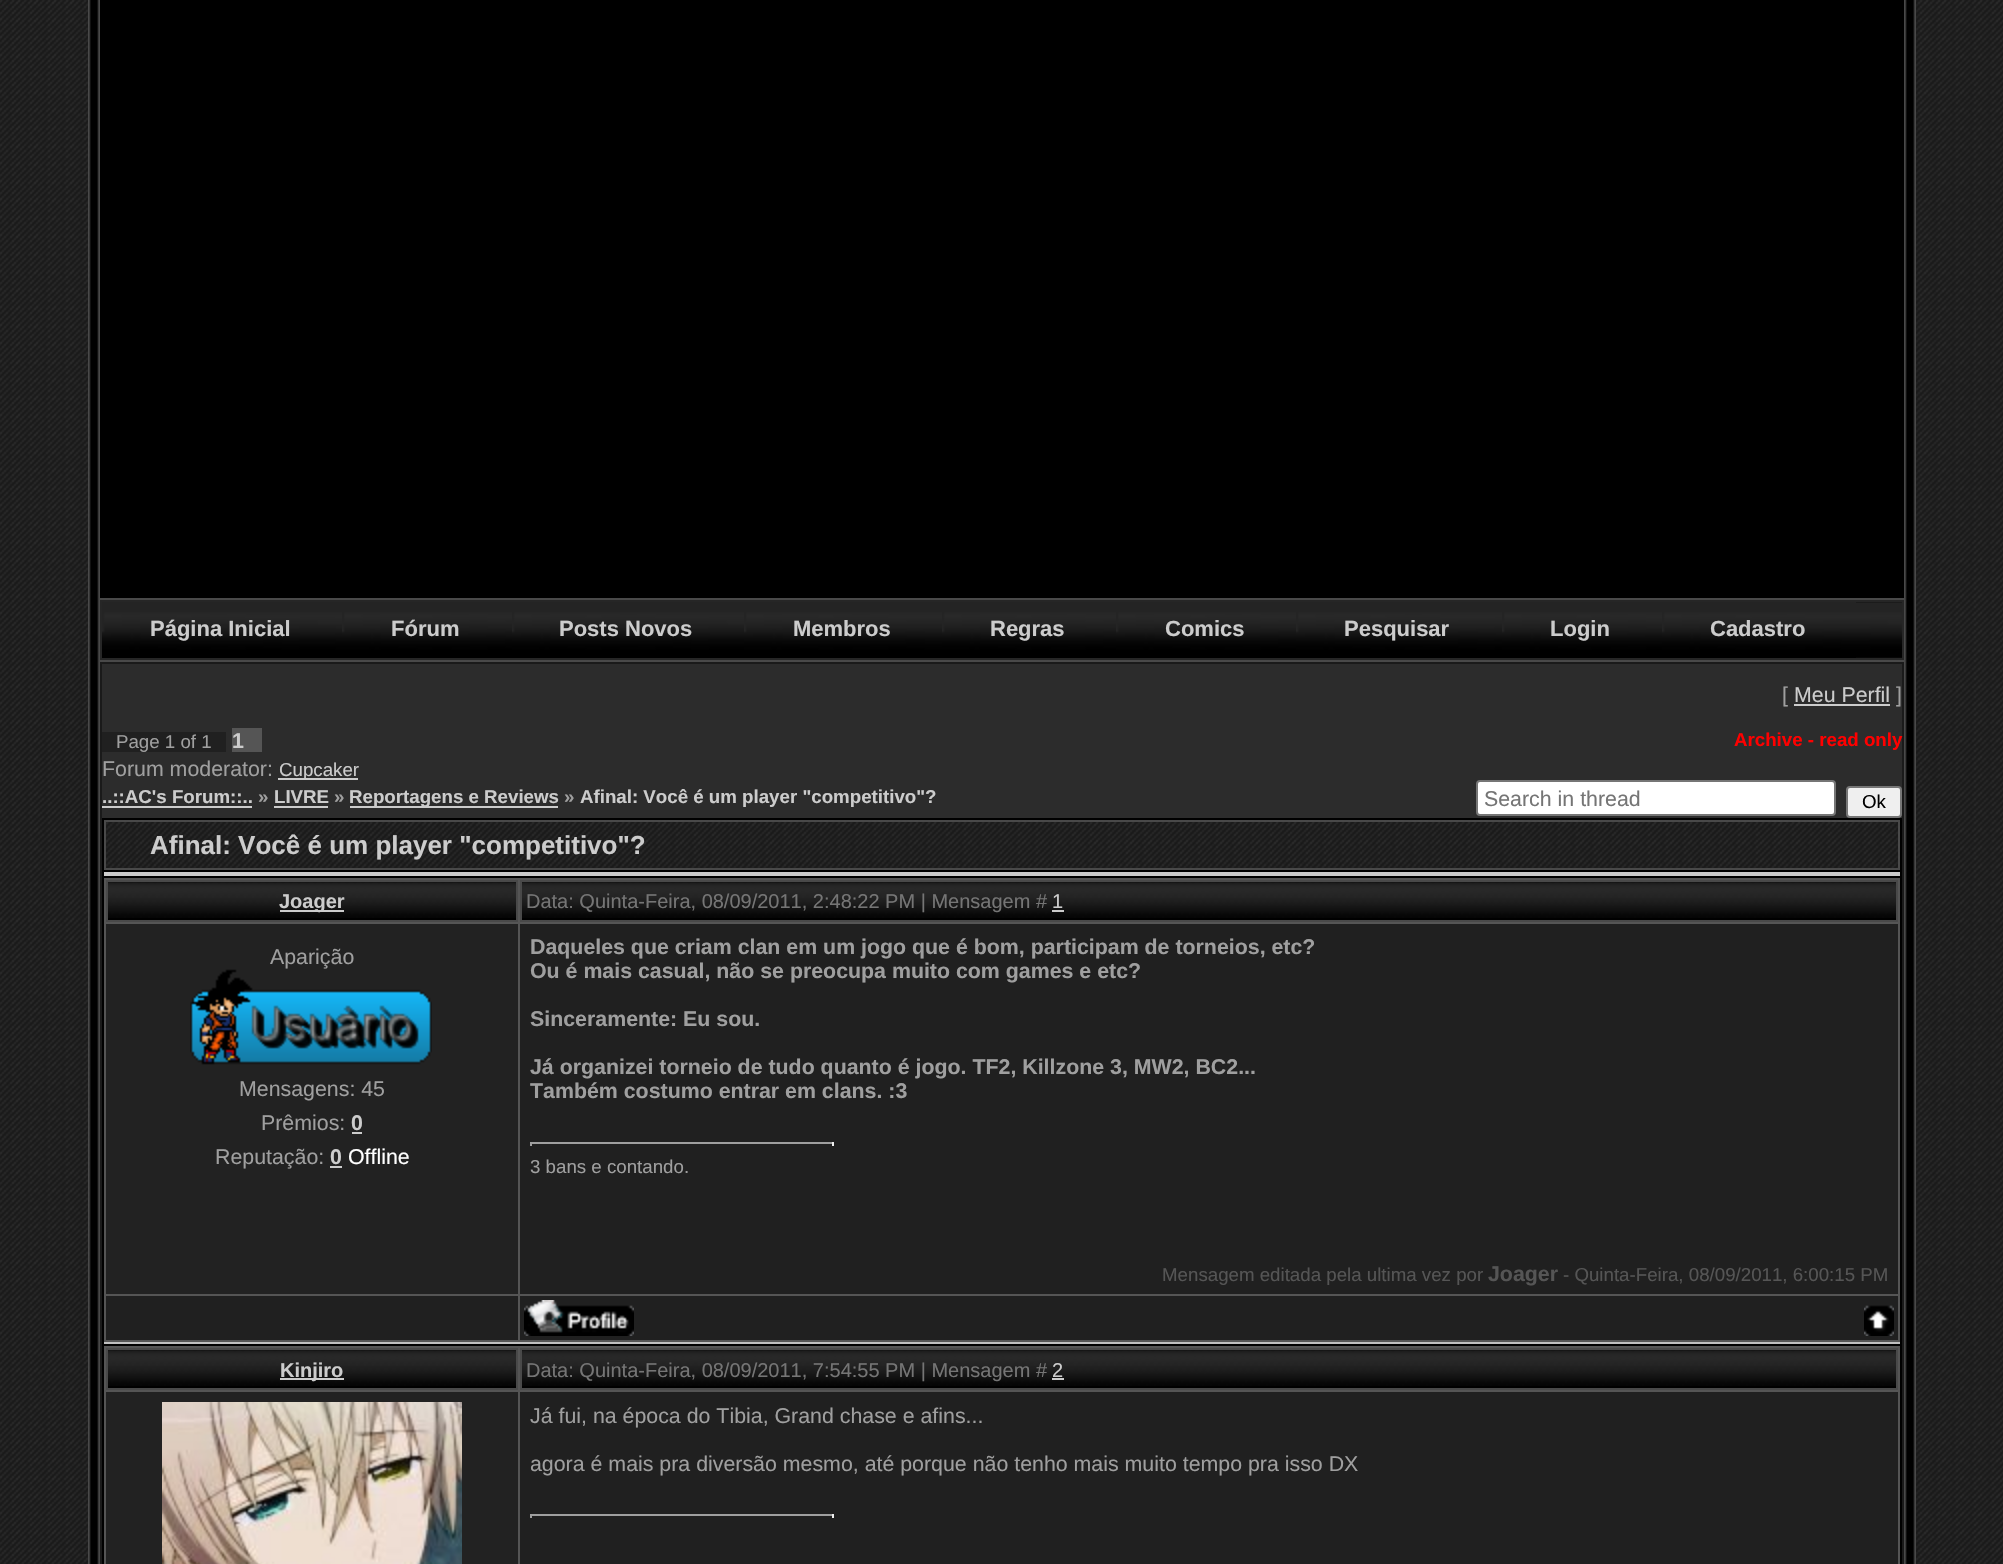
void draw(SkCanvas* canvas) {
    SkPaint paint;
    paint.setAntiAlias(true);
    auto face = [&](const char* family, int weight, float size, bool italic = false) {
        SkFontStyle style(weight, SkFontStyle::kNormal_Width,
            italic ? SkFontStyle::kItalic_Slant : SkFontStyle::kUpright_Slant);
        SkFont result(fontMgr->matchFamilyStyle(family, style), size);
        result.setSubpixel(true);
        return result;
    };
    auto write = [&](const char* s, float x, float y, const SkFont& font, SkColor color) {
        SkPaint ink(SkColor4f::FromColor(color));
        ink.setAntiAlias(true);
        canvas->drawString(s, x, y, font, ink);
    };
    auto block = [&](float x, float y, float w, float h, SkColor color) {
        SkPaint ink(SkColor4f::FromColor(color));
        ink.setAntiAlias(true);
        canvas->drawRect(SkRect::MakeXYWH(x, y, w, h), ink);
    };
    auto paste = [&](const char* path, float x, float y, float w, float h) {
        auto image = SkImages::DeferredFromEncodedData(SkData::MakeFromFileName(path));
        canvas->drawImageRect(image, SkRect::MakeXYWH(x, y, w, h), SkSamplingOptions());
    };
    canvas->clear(SK_ColorWHITE);
    paste("pic1.png", 0, 0, 2003, 1564);
    paste("pic2.png", 88, 0, 12, 1564);
    block(100, 0, 1804, 598, SK_ColorBLACK);
    block(100, 598, 1804, 2, SkColorSetRGB(73, 73, 73));
    paste("pic3.png", 1856, 602, 46, 56);
    paint.setStyle(SkPaint::kStroke_Style);
    paint.setStrokeWidth(2);
    paint.setColor(SkColorSetRGB(38, 38, 38));
    canvas->drawRect(SkRect::MakeXYWH(101, 601, 1802, 58), paint);
    paste("pic4.png", 102, 602, 240, 56);
    auto kFont1 = face("Liberation Sans", 700, 22);
    write("Página Inicial", 150, 636, kFont1, SkColorSetRGB(204, 204, 204));
    paste("pic5.png", 342, 602, 170, 56);
    write("Fórum", 391, 636, kFont1, SkColorSetRGB(204, 204, 204));
    paste("pic6.png", 512, 602, 232, 56);
    write("Posts Novos", 559, 636, kFont1, SkColorSetRGB(204, 204, 204));
    paste("pic7.png", 744, 602, 198, 56);
    write("Membros", 793, 636, kFont1, SkColorSetRGB(204, 204, 204));
    paste("pic8.png", 942, 602, 174, 56);
    write("Regras", 990, 636, kFont1, SkColorSetRGB(204, 204, 204));
    paste("pic9.png", 1116, 602, 180, 56);
    write("Comics", 1165, 636, kFont1, SkColorSetRGB(204, 204, 204));
    paste("pic10.png", 1296, 602, 206, 56);
    write("Pesquisar", 1344, 636, kFont1, SkColorSetRGB(204, 204, 204));
    paste("pic11.png", 1502, 602, 160, 56);
    write("Login", 1550, 636, kFont1, SkColorSetRGB(204, 204, 204));
    paste("pic12.png", 1662, 602, 194, 56);
    write("Cadastro", 1710, 636, kFont1, SkColorSetRGB(204, 204, 204));
    block(100, 660, 1804, 2, SkColorSetRGB(73, 73, 73));
    block(102, 664, 1800, 154, SkColorSetRGB(44, 44, 44));
    paint.setColor(SkColorSetRGB(26, 26, 26));
    canvas->drawRect(SkRect::MakeXYWH(101, 663, 1802, 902), paint);
    auto kFont2 = face("Liberation Sans", 400, 21.35f);
    write("[", 1782, 702, kFont2, SkColorSetRGB(159, 159, 159));
    write("Meu Perfil", 1794, 702, kFont2, SkColorSetRGB(204, 204, 204));
    block(1794, 704, 96, 2, SkColorSetRGB(204, 204, 204));
    write("]", 1896, 702, kFont2, SkColorSetRGB(159, 159, 159));
    block(102, 732, 124, 20, SkColorSetRGB(32, 32, 32));
    auto kFont3 = face("Liberation Sans", 400, 18.7f);
    write("Page 1 of 1", 116, 748, kFont3, SkColorSetRGB(159, 159, 159));
    block(232, 728, 30, 24, SkColorSetRGB(85, 85, 85));
    auto kFont4 = face("Liberation Sans", 700, 21.35f);
    write("1", 232, 748, kFont4, SkColorSetRGB(204, 204, 204));
    auto kFont5 = face("Liberation Sans", 700, 18.7f);
    write("Archive - read only", 1734, 746, kFont5, SkColorSetRGB(255, 0, 0));
    write("Forum moderator:", 102, 776, kFont2, SkColorSetRGB(159, 159, 159));
    block(278, 778, 80, 2, SkColorSetRGB(204, 204, 204));
    write("Cupcaker", 279, 776, kFont3, SkColorSetRGB(204, 204, 204));
    write("..::AC's Forum::..", 102, 803, kFont5, SkColorSetRGB(204, 204, 204));
    block(102, 806, 150, 2, SkColorSetRGB(204, 204, 204));
    write("»", 258, 803, kFont5, SkColorSetRGB(159, 159, 159));
    write("LIVRE", 274, 803, kFont5, SkColorSetRGB(204, 204, 204));
    block(274, 806, 54, 2, SkColorSetRGB(204, 204, 204));
    write("»", 334, 803, kFont5, SkColorSetRGB(159, 159, 159));
    block(350, 806, 208, 2, SkColorSetRGB(204, 204, 204));
    write("Reportagens e Reviews", 349, 803, kFont5, SkColorSetRGB(204, 204, 204));
    write("»", 564, 803, kFont5, SkColorSetRGB(159, 159, 159));
    write("Afinal: Você é um player \"competitivo\"?", 580, 803, kFont5, SkColorSetRGB(204, 204, 204));
    paint.setStyle(SkPaint::kFill_Style);
    paint.setColor(SK_ColorWHITE);
    canvas->drawRoundRect(SkRect::MakeXYWH(1477, 781, 358, 34), 3, 3, paint);
    paint.setStyle(SkPaint::kStroke_Style);
    paint.setColor(SkColorSetRGB(118, 118, 118));
    canvas->drawRoundRect(SkRect::MakeXYWH(1477, 781, 358, 34), 3, 3, paint);
    write("Search in thread", 1484, 806, kFont2, SkColorSetRGB(117, 117, 117));
    paint.setStyle(SkPaint::kFill_Style);
    paint.setColor(SkColorSetRGB(239, 239, 239));
    canvas->drawRoundRect(SkRect::MakeXYWH(1847, 787, 54, 30), 3, 3, paint);
    paint.setStyle(SkPaint::kStroke_Style);
    paint.setColor(SkColorSetRGB(118, 118, 118));
    canvas->drawRoundRect(SkRect::MakeXYWH(1847, 787, 54, 30), 3, 3, paint);
    write("Ok", 1862, 808, kFont3, SK_ColorBLACK);
    block(102, 818, 1800, 746, SK_ColorBLACK);
    paste("pic13.png", 106, 822, 1792, 46);
    paint.setColor(SkColorSetRGB(73, 73, 73));
    canvas->drawRect(SkRect::MakeXYWH(105, 821, 1794, 48), paint);
    auto kFont6 = face("Liberation Sans", 700, 26);
    write("Afinal: Você é um player \"competitivo\"?", 150, 854, kFont6, SkColorSetRGB(204, 204, 204));
    block(104, 872, 1796, 4, SkColorSetRGB(204, 204, 204));
    block(104, 1342, 1796, 2, SkColorSetRGB(192, 192, 192));
    block(104, 878, 1796, 464, SkColorSetRGB(85, 85, 85));
    block(108, 918, 408, 2, SK_ColorBLACK);
    paste("pic14.png", 108, 882, 408, 36);
    canvas->drawRect(SkRect::MakeXYWH(107, 881, 410, 40), paint);
    block(280, 910, 64, 2, SkColorSetRGB(204, 204, 204));
    auto kFont7 = face("Liberation Sans", 700, 20);
    write("Joager", 279, 908, kFont7, SkColorSetRGB(204, 204, 204));
    block(522, 918, 1374, 2, SK_ColorBLACK);
    paste("pic15.png", 522, 882, 1374, 36);
    canvas->drawRect(SkRect::MakeXYWH(521, 881, 1376, 40), paint);
    auto kFont8 = face("Liberation Sans", 400, 20);
    write("Data: Quinta-Feira, 08/09/2011, 2:48:22 PM | Mensagem #", 526, 908, kFont8, SkColorSetRGB(117, 117, 117));
    write("1", 1052, 908, kFont8, SkColorSetRGB(204, 204, 204));
    block(1052, 910, 12, 2, SkColorSetRGB(204, 204, 204));
    block(106, 924, 412, 370, SkColorSetRGB(34, 34, 34));
    write("Aparição", 270, 964, kFont2, SkColorSetRGB(159, 159, 159));
    paste("pic16.png", 190, 969, 242, 96);
    write("Mensagens: 45", 239, 1096, kFont2, SkColorSetRGB(159, 159, 159));
    write("Prêmios:", 261, 1130, kFont2, SkColorSetRGB(159, 159, 159));
    write("0", 351, 1130, kFont4, SkColorSetRGB(204, 204, 204));
    block(352, 1132, 10, 2, SkColorSetRGB(204, 204, 204));
    write("Reputação:", 215, 1164, kFont2, SkColorSetRGB(159, 159, 159));
    write("0", 330, 1164, kFont4, SkColorSetRGB(204, 204, 204));
    block(330, 1166, 12, 2, SkColorSetRGB(204, 204, 204));
    write("Offline", 348, 1164, kFont2, SK_ColorWHITE);
    block(520, 924, 1378, 370, SkColorSetRGB(32, 32, 32));
    write("Daqueles que criam clan em um jogo que é bom, participam de torneios, etc?", 530, 954, kFont4, SkColorSetRGB(159, 159, 159));
    write("Ou é mais casual, não se preocupa muito com games e etc?", 530, 978, kFont4, SkColorSetRGB(159, 159, 159));
    write("Sinceramente: Eu sou.", 530, 1026, kFont4, SkColorSetRGB(159, 159, 159));
    write("Já organizei torneio de tudo quanto é jogo. TF2, Killzone 3, MW2, BC2...", 530, 1074, kFont4, SkColorSetRGB(159, 159, 159));
    write("Também costumo entrar em clans. :3", 530, 1098, kFont4, SkColorSetRGB(159, 159, 159));
    block(530, 1142, 304, 2, SkColorSetRGB(159, 159, 159));
    block(832, 1142, 2, 4, SkColorSetRGB(238, 238, 238));
    block(530, 1142, 2, 4, SkColorSetRGB(159, 159, 159));
    write("3 bans e contando.", 530, 1173, kFont3, SkColorSetRGB(159, 159, 159));
    write("Mensagem editada pela ultima vez por", 1162, 1281, kFont3, SkColorSetRGB(85, 85, 85));
    write("Joager", 1488, 1281, kFont4, SkColorSetRGB(85, 85, 85));
    write("- Quinta-Feira, 08/09/2011, 6:00:15 PM", 1563, 1281, kFont3, SkColorSetRGB(85, 85, 85));
    block(106, 1296, 412, 44, SkColorSetRGB(32, 32, 32));
    block(520, 1296, 1378, 44, SkColorSetRGB(32, 32, 32));
    paste("pic17.png", 524, 1300, 110, 36);
    paste("pic18.png", 1864, 1305, 30, 31);
    block(104, 1346, 1796, 218, SkColorSetRGB(85, 85, 85));
    block(108, 1386, 408, 2, SK_ColorBLACK);
    paste("pic14.png", 108, 1350, 408, 36);
    canvas->drawRect(SkRect::MakeXYWH(107, 1349, 410, 40), paint);
    block(280, 1378, 64, 2, SkColorSetRGB(204, 204, 204));
    write("Kinjiro", 280, 1377, kFont7, SkColorSetRGB(204, 204, 204));
    block(522, 1386, 1374, 2, SK_ColorBLACK);
    paste("pic15.png", 522, 1350, 1374, 36);
    canvas->drawRect(SkRect::MakeXYWH(521, 1349, 1376, 40), paint);
    write("Data: Quinta-Feira, 08/09/2011, 7:54:55 PM | Mensagem #", 526, 1377, kFont8, SkColorSetRGB(117, 117, 117));
    write("2", 1052, 1377, kFont8, SkColorSetRGB(204, 204, 204));
    block(1052, 1378, 12, 2, SkColorSetRGB(204, 204, 204));
    block(106, 1392, 412, 172, SkColorSetRGB(34, 34, 34));
    paste("pic19.png", 162, 1402, 300, 162);
    block(520, 1392, 1378, 172, SkColorSetRGB(32, 32, 32));
    write("Já fui, na época do Tibia, Grand chase e afins...", 530, 1423, kFont2, SkColorSetRGB(159, 159, 159));
    write("agora é mais pra diversão mesmo, até porque não tenho mais muito tempo pra isso DX", 530, 1471, kFont2, SkColorSetRGB(159, 159, 159));
    block(530, 1514, 304, 2, SkColorSetRGB(159, 159, 159));
    block(832, 1514, 2, 4, SkColorSetRGB(238, 238, 238));
    block(530, 1514, 2, 4, SkColorSetRGB(159, 159, 159));
    paste("pic2.png", 1904, 0, 12, 1564);
}
